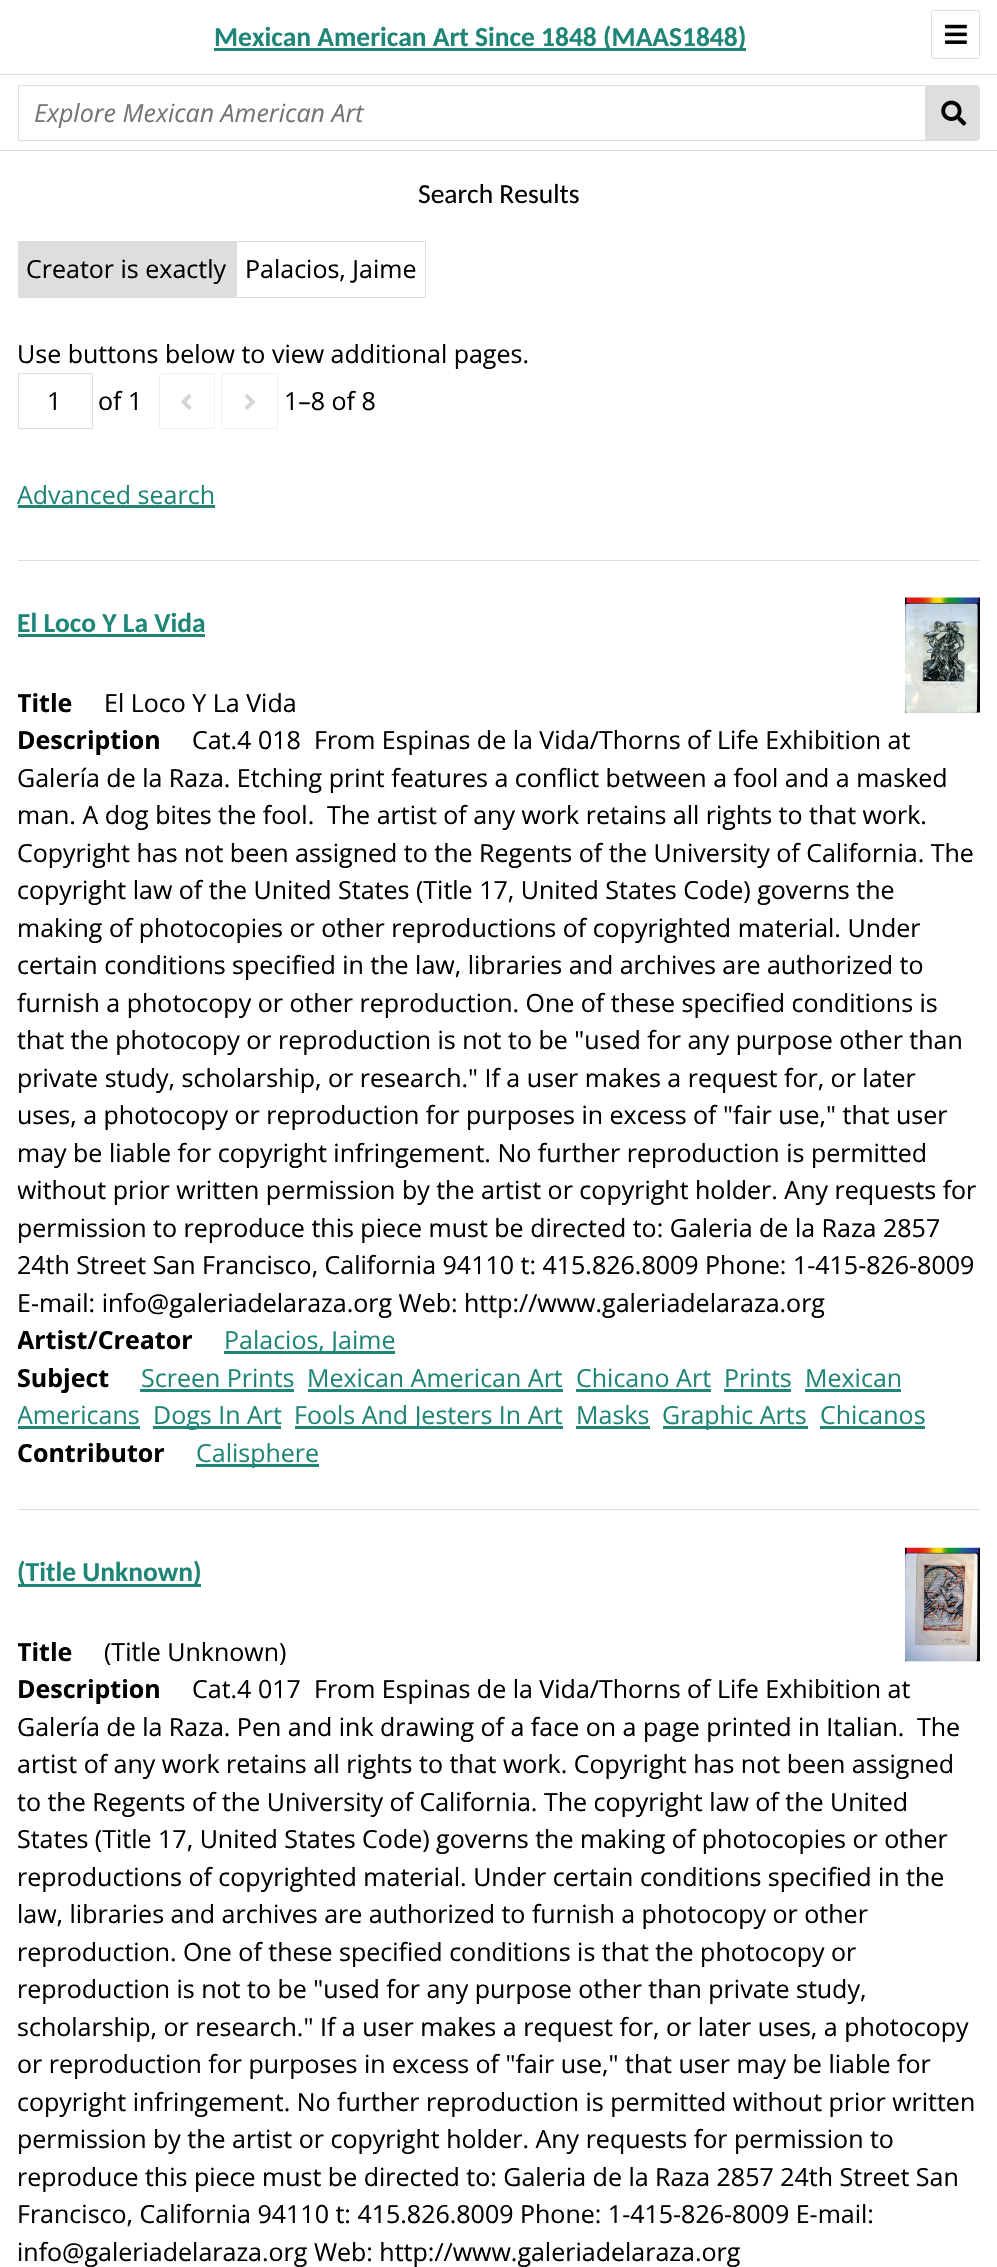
void draw(SkCanvas* canvas) {
    SkPaint paint;
    paint.setAntiAlias(true);
    auto face = [&](const char* family, int weight, float size, bool italic = false) {
        SkFontStyle style(weight, SkFontStyle::kNormal_Width,
            italic ? SkFontStyle::kItalic_Slant : SkFontStyle::kUpright_Slant);
        SkFont result(fontMgr->matchFamilyStyle(family, style), size);
        result.setSubpixel(true);
        return result;
    };
    auto write = [&](const char* s, float x, float y, const SkFont& font, SkColor color) {
        SkPaint ink(SkColor4f::FromColor(color));
        ink.setAntiAlias(true);
        canvas->drawString(s, x, y, font, ink);
    };
    auto block = [&](float x, float y, float w, float h, SkColor color) {
        SkPaint ink(SkColor4f::FromColor(color));
        ink.setAntiAlias(true);
        canvas->drawRect(SkRect::MakeXYWH(x, y, w, h), ink);
    };
    auto paste = [&](const char* path, float x, float y, float w, float h) {
        auto image = SkImages::DeferredFromEncodedData(SkData::MakeFromFileName(path));
        canvas->drawImageRect(image, SkRect::MakeXYWH(x, y, w, h), SkSamplingOptions());
    };
    canvas->clear(SK_ColorWHITE);
    block(214, 48, 532, 3, SkColorSetRGB(31, 134, 119));
    auto kFont1 = face("Carlito", 700, 27.5f);
    write("Mexican American Art Since 1848 (MAAS1848)", 214, 46, kFont1, SkColorSetRGB(31, 134, 119));
    paint.setStyle(SkPaint::kStroke_Style);
    paint.setStrokeWidth(1);
    paint.setColor(SkColorSetRGB(222, 222, 222));
    canvas->drawRoundRect(SkRect::MakeXYWH(931.5f, 10.5f, 48, 48), 2, 2, paint);
    paste("pic1.png", 945, 24, 22, 20);
    block(0, 74, 997, 1, SkColorSetRGB(222, 222, 222));
    block(0, 150, 997, 1, SkColorSetRGB(222, 222, 222));
    canvas->drawRect(SkRect::MakeXYWH(18.5f, 85.5f, 907, 55), paint);
    auto kFont2 = face("Open Sans", 400, 25, true);
    write("Explore Mexican American Art", 34, 122, kFont2, SkColorSetRGB(117, 117, 117));
    paint.setStyle(SkPaint::kFill_Style);
    canvas->drawPath(SkPathBuilder().moveTo(926, 85).lineTo(976, 85).cubicTo(978, 85, 980, 87, 980, 89).lineTo(980, 137).cubicTo(980, 139, 978, 141, 976, 141).lineTo(926, 141).close().detach(), paint);
    paste("pic2.png", 941, 100, 26, 26);
    auto kFont3 = face("Carlito", 400, 27.5f);
    write("Search Results", 418, 203, kFont3, SK_ColorBLACK);
    block(18, 241, 218, 57, SkColorSetRGB(222, 222, 222));
    auto kFont4 = face("Open Sans", 400, 25);
    write("Creator is exactly", 26, 278, kFont4, SK_ColorBLACK);
    paint.setStyle(SkPaint::kStroke_Style);
    canvas->drawRect(SkRect::MakeXYWH(236.5f, 241.5f, 189, 56), paint);
    write("Palacios, Jaime", 245, 278, kFont4, SK_ColorBLACK);
    write("Use buttons below to view additional pages.", 17, 363, kFont4, SK_ColorBLACK);
    canvas->drawRect(SkRect::MakeXYWH(18.5f, 373.5f, 74, 55), paint);
    write("1", 47, 410, kFont4, SK_ColorBLACK);
    write("of 1", 98, 410, kFont4, SK_ColorBLACK);
    paint.setColor(SkColorSetRGB(239, 239, 239));
    canvas->drawRoundRect(SkRect::MakeXYWH(159.5f, 373.5f, 55, 55), 2, 2, paint);
    paste("pic3.png", 181, 394, 11, 16);
    canvas->drawRoundRect(SkRect::MakeXYWH(221.5f, 373.5f, 56, 55), 2, 2, paint);
    paste("pic4.png", 245, 394, 10, 16);
    write("1–8 of 8", 284, 410, kFont4, SK_ColorBLACK);
    write("Advanced search", 17, 504, kFont4, SkColorSetRGB(31, 134, 119));
    block(18, 505, 197, 3, SkColorSetRGB(31, 134, 119));
    block(18, 560, 962, 1, SkColorSetRGB(222, 222, 222));
    block(18, 1509, 962, 1, SkColorSetRGB(222, 222, 222));
    write("El Loco Y La Vida", 17, 632, kFont1, SkColorSetRGB(31, 134, 119));
    block(18, 634, 187, 3, SkColorSetRGB(31, 134, 119));
    paste("pic5.png", 905, 597, 75, 116);
    canvas->save();
    canvas->clipRect(SkRect::MakeXYWH(18, 561, 962, 948));
    auto kFont5 = face("Open Sans", 700, 25);
    write("Title", 17, 712, kFont5, SK_ColorBLACK);
    canvas->restore();
    write("El Loco Y La Vida", 104, 712, kFont4, SK_ColorBLACK);
    write("Description", 17, 749, kFont5, SK_ColorBLACK);
    write("Cat.4 018", 192, 749, kFont4, SK_ColorBLACK);
    write("From Espinas de la Vida/Thorns of Life Exhibition at", 314, 749, kFont4, SK_ColorBLACK);
    write("Galería de la Raza. Etching print features a conflict between a fool and a masked", 17, 787, kFont4, SK_ColorBLACK);
    write("man. A dog bites the fool.", 17, 824, kFont4, SK_ColorBLACK);
    write("The artist of any work retains all rights to that work.", 327, 824, kFont4, SK_ColorBLACK);
    write("Copyright has not been assigned to the Regents of the University of California. The", 17, 862, kFont4, SK_ColorBLACK);
    write("copyright law of the United States (Title 17, United States Code) governs the", 17, 899, kFont4, SK_ColorBLACK);
    write("making of photocopies or other reproductions of copyrighted material. Under", 17, 937, kFont4, SK_ColorBLACK);
    write("certain conditions specified in the law, libraries and archives are authorized to", 17, 974, kFont4, SK_ColorBLACK);
    write("furnish a photocopy or other reproduction. One of these specified conditions is", 17, 1012, kFont4, SK_ColorBLACK);
    write("that the photocopy or reproduction is not to be \"used for any purpose other than", 17, 1049, kFont4, SK_ColorBLACK);
    write("private study, scholarship, or research.\" If a user makes a request for, or later", 17, 1087, kFont4, SK_ColorBLACK);
    write("uses, a photocopy or reproduction for purposes in excess of \"fair use,\" that user", 17, 1124, kFont4, SK_ColorBLACK);
    write("may be liable for copyright infringement. No further reproduction is permitted", 17, 1162, kFont4, SK_ColorBLACK);
    canvas->save();
    canvas->clipRect(SkRect::MakeXYWH(18, 561, 962, 948));
    write("without prior written permission by the artist or copyright holder. Any requests for", 17, 1199, kFont4, SK_ColorBLACK);
    canvas->restore();
    write("permission to reproduce this piece must be directed to: Galeria de la Raza 2857", 17, 1237, kFont4, SK_ColorBLACK);
    write("24th Street San Francisco, California 94110 t: 415.826.8009 Phone: 1-415-826-8009", 17, 1274, kFont4, SK_ColorBLACK);
    write("E-mail: info@galeriadelaraza.org Web: http://www.galeriadelaraza.org", 17, 1312, kFont4, SK_ColorBLACK);
    canvas->save();
    canvas->clipRect(SkRect::MakeXYWH(18, 561, 962, 948));
    write("Artist/Creator", 17, 1349, kFont5, SK_ColorBLACK);
    canvas->restore();
    block(224, 1351, 171, 3, SkColorSetRGB(31, 134, 119));
    write("Palacios, Jaime", 224, 1349, kFont4, SkColorSetRGB(31, 134, 119));
    write("Subject", 17, 1387, kFont5, SK_ColorBLACK);
    write("Screen Prints", 141, 1387, kFont4, SkColorSetRGB(31, 134, 119));
    block(140, 1389, 154, 3, SkColorSetRGB(31, 134, 119));
    write("Mexican American Art", 307, 1387, kFont4, SkColorSetRGB(31, 134, 119));
    block(308, 1389, 255, 3, SkColorSetRGB(31, 134, 119));
    write("Chicano Art", 576, 1387, kFont4, SkColorSetRGB(31, 134, 119));
    block(576, 1389, 135, 3, SkColorSetRGB(31, 134, 119));
    write("Prints", 724, 1387, kFont4, SkColorSetRGB(31, 134, 119));
    block(724, 1389, 67, 3, SkColorSetRGB(31, 134, 119));
    write("Mexican", 805, 1387, kFont4, SkColorSetRGB(31, 134, 119));
    block(805, 1389, 96, 3, SkColorSetRGB(31, 134, 119));
    canvas->save();
    canvas->clipRect(SkRect::MakeXYWH(18, 561, 962, 948));
    write("Americans", 17, 1424, kFont4, SkColorSetRGB(31, 134, 119));
    canvas->restore();
    block(18, 1426, 122, 3, SkColorSetRGB(31, 134, 119));
    block(153, 1426, 128, 3, SkColorSetRGB(31, 134, 119));
    write("Dogs In Art", 153, 1424, kFont4, SkColorSetRGB(31, 134, 119));
    block(295, 1426, 268, 3, SkColorSetRGB(31, 134, 119));
    write("Fools And Jesters In Art", 294, 1424, kFont4, SkColorSetRGB(31, 134, 119));
    write("Masks", 576, 1424, kFont4, SkColorSetRGB(31, 134, 119));
    block(576, 1426, 74, 3, SkColorSetRGB(31, 134, 119));
    block(663, 1426, 145, 3, SkColorSetRGB(31, 134, 119));
    write("Graphic Arts", 662, 1424, kFont4, SkColorSetRGB(31, 134, 119));
    write("Chicanos", 820, 1424, kFont4, SkColorSetRGB(31, 134, 119));
    block(820, 1426, 105, 3, SkColorSetRGB(31, 134, 119));
    write("Contributor", 17, 1462, kFont5, SK_ColorBLACK);
    block(196, 1464, 123, 3, SkColorSetRGB(31, 134, 119));
    write("Calisphere", 196, 1462, kFont4, SkColorSetRGB(31, 134, 119));
    block(18, 1584, 183, 3, SkColorSetRGB(31, 134, 119));
    write("(Title Unknown)", 17, 1581, kFont1, SkColorSetRGB(31, 134, 119));
    paste("pic6.png", 905, 1547, 75, 115);
    canvas->save();
    canvas->clipRect(SkRect::MakeXYWH(18, 1548, 962, 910));
    write("Title", 17, 1661, kFont5, SK_ColorBLACK);
    canvas->restore();
    write("(Title Unknown)", 104, 1661, kFont4, SK_ColorBLACK);
    write("Description", 17, 1698, kFont5, SK_ColorBLACK);
    write("Cat.4 017", 192, 1698, kFont4, SK_ColorBLACK);
    write("From Espinas de la Vida/Thorns of Life Exhibition at", 314, 1698, kFont4, SK_ColorBLACK);
    write("Galería de la Raza. Pen and ink drawing of a face on a page printed in Italian.", 17, 1736, kFont4, SK_ColorBLACK);
    write("The", 917, 1736, kFont4, SK_ColorBLACK);
    write("artist of any work retains all rights to that work. Copyright has not been assigned", 17, 1773, kFont4, SK_ColorBLACK);
    write("to the Regents of the University of California. The copyright law of the United", 17, 1811, kFont4, SK_ColorBLACK);
    write("States (Title 17, United States Code) governs the making of photocopies or other", 17, 1848, kFont4, SK_ColorBLACK);
    write("reproductions of copyrighted material. Under certain conditions specified in the", 17, 1886, kFont4, SK_ColorBLACK);
    write("law, libraries and archives are authorized to furnish a photocopy or other", 17, 1923, kFont4, SK_ColorBLACK);
    write("reproduction. One of these specified conditions is that the photocopy or", 17, 1961, kFont4, SK_ColorBLACK);
    write("reproduction is not to be \"used for any purpose other than private study,", 17, 1998, kFont4, SK_ColorBLACK);
    write("scholarship, or research.\" If a user makes a request for, or later uses, a photocopy", 17, 2036, kFont4, SK_ColorBLACK);
    write("or reproduction for purposes in excess of \"fair use,\" that user may be liable for", 17, 2073, kFont4, SK_ColorBLACK);
    write("copyright infringement. No further reproduction is permitted without prior written", 17, 2111, kFont4, SK_ColorBLACK);
    write("permission by the artist or copyright holder. Any requests for permission to", 17, 2148, kFont4, SK_ColorBLACK);
    write("reproduce this piece must be directed to: Galeria de la Raza 2857 24th Street San", 17, 2186, kFont4, SK_ColorBLACK);
    write("Francisco, California 94110 t: 415.826.8009 Phone: 1-415-826-8009 E-mail:", 17, 2223, kFont4, SK_ColorBLACK);
    write("info@galeriadelaraza.org Web: http://www.galeriadelaraza.org", 17, 2261, kFont4, SK_ColorBLACK);
}
